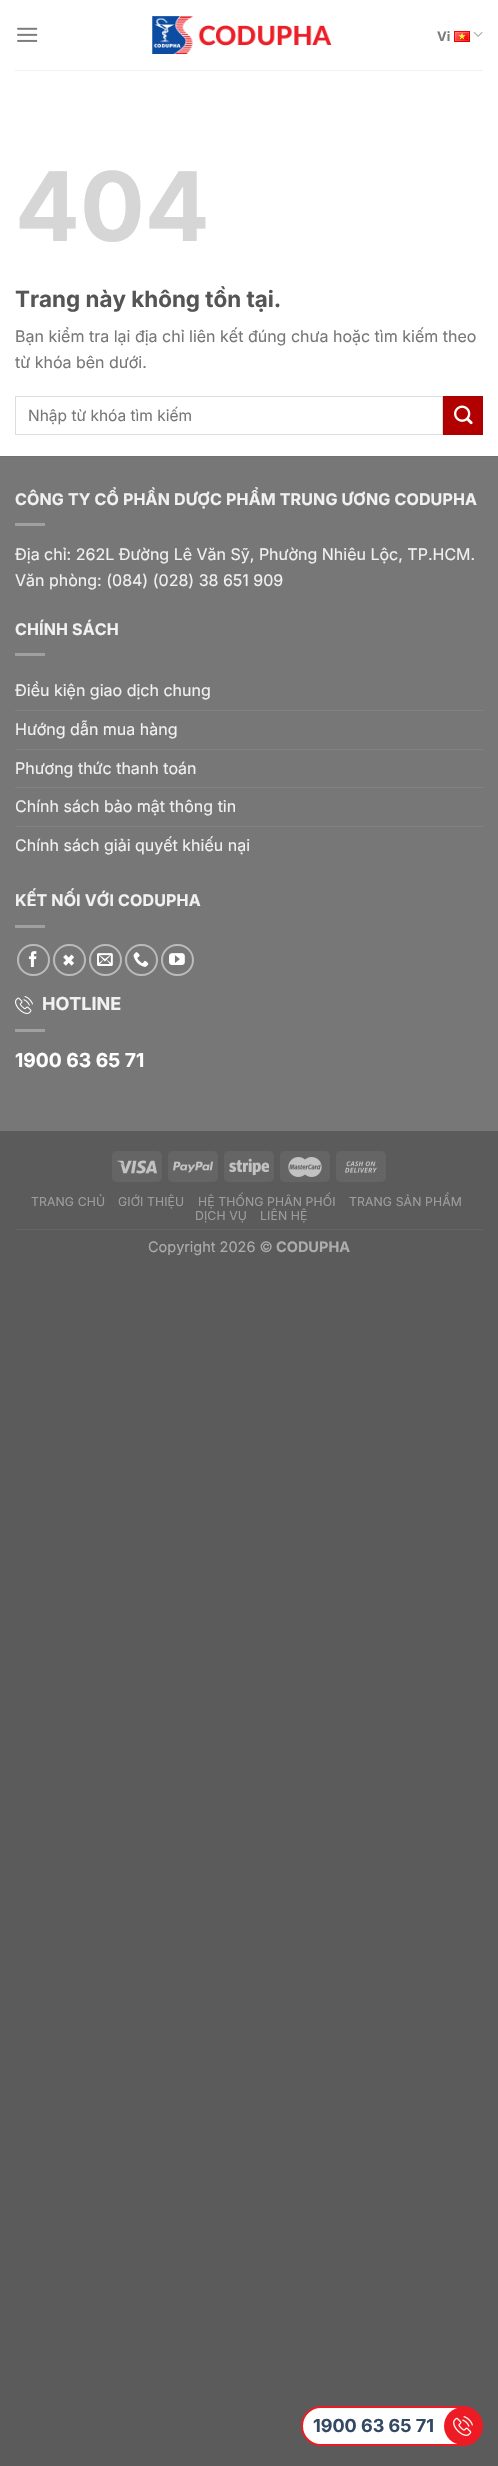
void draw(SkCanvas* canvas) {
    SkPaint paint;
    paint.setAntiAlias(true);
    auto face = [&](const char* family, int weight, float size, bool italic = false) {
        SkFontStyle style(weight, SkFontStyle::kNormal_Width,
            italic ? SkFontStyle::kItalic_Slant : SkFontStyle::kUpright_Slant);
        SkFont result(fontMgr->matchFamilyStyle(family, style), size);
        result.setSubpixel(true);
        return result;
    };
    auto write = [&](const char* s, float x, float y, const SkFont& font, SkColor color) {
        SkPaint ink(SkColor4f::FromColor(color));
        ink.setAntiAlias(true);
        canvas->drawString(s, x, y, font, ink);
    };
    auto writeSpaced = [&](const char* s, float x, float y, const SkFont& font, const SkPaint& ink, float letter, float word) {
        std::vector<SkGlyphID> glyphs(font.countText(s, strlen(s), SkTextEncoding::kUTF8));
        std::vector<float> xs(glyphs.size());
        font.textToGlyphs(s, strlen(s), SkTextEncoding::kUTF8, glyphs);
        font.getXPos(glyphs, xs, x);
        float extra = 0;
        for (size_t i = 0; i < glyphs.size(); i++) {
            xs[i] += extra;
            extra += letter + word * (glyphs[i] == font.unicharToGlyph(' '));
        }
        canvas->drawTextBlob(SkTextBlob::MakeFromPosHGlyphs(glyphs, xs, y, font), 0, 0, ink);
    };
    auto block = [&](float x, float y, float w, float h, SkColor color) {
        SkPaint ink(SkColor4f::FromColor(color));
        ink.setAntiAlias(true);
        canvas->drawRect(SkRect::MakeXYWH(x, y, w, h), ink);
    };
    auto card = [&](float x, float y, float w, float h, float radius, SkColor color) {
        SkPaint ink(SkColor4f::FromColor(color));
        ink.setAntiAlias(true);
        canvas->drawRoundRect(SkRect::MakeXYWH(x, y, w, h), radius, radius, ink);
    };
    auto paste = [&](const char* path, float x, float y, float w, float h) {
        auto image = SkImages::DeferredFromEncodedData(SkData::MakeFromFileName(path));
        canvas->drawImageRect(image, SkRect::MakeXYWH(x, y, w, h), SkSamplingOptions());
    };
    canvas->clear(SkColorSetRGB(91, 91, 91));
    block(0, 0, 498, 456, SK_ColorWHITE);
    paste("pic1.png", 17, 27, 21, 15);
    paste("pic2.png", 152, 16, 180, 38);
    auto kFont1 = face("Inter", 700, 13);
    write("Vi", 437, 41, kFont1, SkColorSetRGB(125, 125, 125));
    paste("pic3.png", 454, 31, 16, 11);
    paste("pic4.png", 473, 31, 10, 6);
    block(15, 70, 468, 1, SkColorSetRGB(241, 241, 241));
    auto kFont2 = face("Inter", 700, 96);
    write("404", 15, 241, kFont2, SkColorSetRGB(214, 214, 214));
    auto kFont3 = face("Inter", 700, 22.4f);
    write("Trang này không tồn tại.", 15, 307, kFont3, SkColorSetRGB(85, 85, 85));
    auto kFont4 = face("Inter", 400, 16);
    write("Bạn kiểm tra lại địa chỉ liên kết đúng chưa hoặc tìm kiếm theo", 15, 342, kFont4, SkColorSetRGB(119, 119, 119));
    write("từ khóa bên dưới.", 15, 368, kFont4, SkColorSetRGB(119, 119, 119));
    paint.setStyle(SkPaint::kStroke_Style);
    paint.setStrokeWidth(1);
    paint.setColor(SkColorSetRGB(221, 221, 221));
    canvas->drawRect(SkRect::MakeXYWH(15.5f, 396.5f, 427, 38), paint);
    auto kFont5 = face("Inter", 400, 15.5f);
    write("Nhập từ khóa tìm kiếm", 28, 421, kFont5, SkColorSetRGB(119, 119, 119));
    paint.setStyle(SkPaint::kFill_Style);
    paint.setColor(SkColorSetRGB(178, 0, 0));
    canvas->drawRect(SkRect::MakeXYWH(443.5f, 396.5f, 39, 38), paint);
    paint.setStyle(SkPaint::kStroke_Style);
    paint.setColor(SkColorSetRGB(169, 0, 0));
    canvas->drawRect(SkRect::MakeXYWH(443.5f, 396.5f, 39, 38), paint);
    paste("pic5.png", 454, 405, 19, 20);
    block(0, 457, 498, 674, SkColorSetRGB(119, 119, 119));
    block(0, 456, 498, 1, SkColorSetRGB(113, 113, 113));
    auto kFont6 = face("Inter", 700, 16);
    paint.setStyle(SkPaint::kFill_Style);
    paint.setColor(SkColorSetRGB(241, 241, 241));
    writeSpaced("CÔNG TY CỔ PHẦN DƯỢC PHẨM TRUNG ƯƠNG CODUPHA", 15, 505, kFont6, paint, 0.15f, 0);
    block(15, 523, 30, 3, SkColorSetRGB(160, 160, 160));
    write("Địa chỉ: 262L Đường Lê Văn Sỹ, Phường Nhiêu Lộc, TP.HCM.", 15, 560, kFont4, SkColorSetRGB(241, 241, 241));
    write("Văn phòng: (084) (028) 38 651 909", 15, 586, kFont4, SkColorSetRGB(241, 241, 241));
    writeSpaced("CHÍNH SÁCH", 15, 635, kFont6, paint, 0.15f, 0);
    block(15, 653, 30, 3, SkColorSetRGB(160, 160, 160));
    write("Điều kiện giao dịch chung", 15, 696, kFont4, SkColorSetRGB(241, 241, 241));
    block(15, 710, 468, 1, SkColorSetRGB(130, 130, 130));
    write("Hướng dẫn mua hàng", 15, 735, kFont4, SkColorSetRGB(241, 241, 241));
    block(15, 749, 468, 1, SkColorSetRGB(130, 130, 130));
    write("Phương thức thanh toán", 15, 774, kFont4, SkColorSetRGB(241, 241, 241));
    block(15, 787, 468, 1, SkColorSetRGB(130, 130, 130));
    write("Chính sách bảo mật thông tin", 15, 812, kFont4, SkColorSetRGB(241, 241, 241));
    block(15, 826, 468, 1, SkColorSetRGB(130, 130, 130));
    write("Chính sách giải quyết khiếu nại", 15, 851, kFont4, SkColorSetRGB(241, 241, 241));
    writeSpaced("KẾT NỐI VỚI CODUPHA", 15, 906, kFont6, paint, 0.15f, 0);
    block(15, 925, 30, 3, SkColorSetRGB(160, 160, 160));
    paint.setStyle(SkPaint::kStroke_Style);
    paint.setStrokeWidth(2);
    paint.setColor(SkColorSetRGB(187, 187, 187));
    canvas->drawRoundRect(SkRect::MakeXYWH(18, 945, 31, 30), 15, 15, paint);
    paste("pic6.png", 28, 951, 9, 16);
    canvas->drawRoundRect(SkRect::MakeXYWH(54, 945, 31, 30), 15, 15, paint);
    auto kFont7 = face("DejaVu Sans", 400, 16);
    write("✖", 62, 966, kFont7, SK_ColorWHITE);
    canvas->drawRoundRect(SkRect::MakeXYWH(90, 945, 31, 30), 15, 15, paint);
    paste("pic7.png", 97, 953, 16, 13);
    canvas->drawRoundRect(SkRect::MakeXYWH(126, 945, 31, 30), 15, 15, paint);
    paste("pic8.png", 133, 952, 16, 15);
    canvas->drawRoundRect(SkRect::MakeXYWH(162, 945, 31, 30), 15, 15, paint);
    paste("pic9.png", 169, 953, 16, 12);
    paste("pic10.png", 15, 996, 18, 18);
    auto kFont8 = face("Inter", 700, 18);
    write("HOTLINE", 42, 1010, kFont8, SkColorSetRGB(241, 241, 241));
    block(15, 1029, 30, 3, SkColorSetRGB(160, 160, 160));
    auto kFont9 = face("Inter", 700, 19.25f);
    write("1900 63 65 71", 15, 1067, kFont9, SK_ColorWHITE);
    card(112, 1151, 50, 31, 5, SkColorSetRGB(101, 101, 101));
    paste("pic11.png", 117, 1160, 40, 14);
    card(168, 1151, 50, 31, 5, SkColorSetRGB(101, 101, 101));
    paste("pic12.png", 173, 1161, 40, 12);
    card(224, 1151, 50, 31, 5, SkColorSetRGB(101, 101, 101));
    paste("pic13.png", 229, 1158, 40, 18);
    card(280, 1151, 50, 31, 5, SkColorSetRGB(101, 101, 101));
    paste("pic14.png", 288, 1157, 34, 20);
    card(336, 1151, 50, 31, 5, SkColorSetRGB(101, 101, 101));
    paste("pic15.png", 345, 1161, 32, 12);
    block(15, 1229, 468, 1, SkColorSetRGB(101, 101, 101));
    auto kFont10 = face("Inter", 400, 12.25f);
    paint.setStyle(SkPaint::kFill_Style);
    paint.setColor(SkColorSetRGB(157, 157, 157));
    writeSpaced("TRANG CHỦ", 31, 1206, kFont10, paint, 0.1f, 0);
    writeSpaced("GIỚI THIỆU", 118, 1206, kFont10, paint, 0.1f, 0);
    writeSpaced("HỆ THỐNG PHÂN PHỐI", 198, 1206, kFont10, paint, 0.1f, 0);
    writeSpaced("TRANG SẢN PHẨM", 349, 1206, kFont10, paint, 0.1f, 0);
    writeSpaced("DỊCH VỤ", 195, 1220, kFont10, paint, 0.1f, 0);
    writeSpaced("LIÊN HỆ", 260, 1220, kFont10, paint, 0.1f, 0);
    auto kFont11 = face("Inter", 400, 14.5f);
    write("Copyright 2026 ©", 148, 1252, kFont11, SkColorSetRGB(173, 173, 173));
    auto kFont12 = face("Inter", 700, 14.5f);
    write("CODUPHA", 276, 1252, kFont12, SkColorSetRGB(173, 173, 173));
    paint.setColor(SK_ColorWHITE);
    canvas->drawRoundRect(SkRect::MakeXYWH(302, 2407, 180, 38), 19, 19, paint);
    paint.setStyle(SkPaint::kStroke_Style);
    paint.setColor(SkColorSetRGB(237, 28, 36));
    canvas->drawRoundRect(SkRect::MakeXYWH(302, 2407, 180, 38), 19, 19, paint);
    write("1900 63 65 71", 313, 2432, kFont8, SkColorSetRGB(51, 72, 98));
    paint.setStyle(SkPaint::kFill_Style);
    canvas->drawCircle(463, 2426, 19, paint);
    paste("pic16.png", 453, 2416, 20, 20);
}
